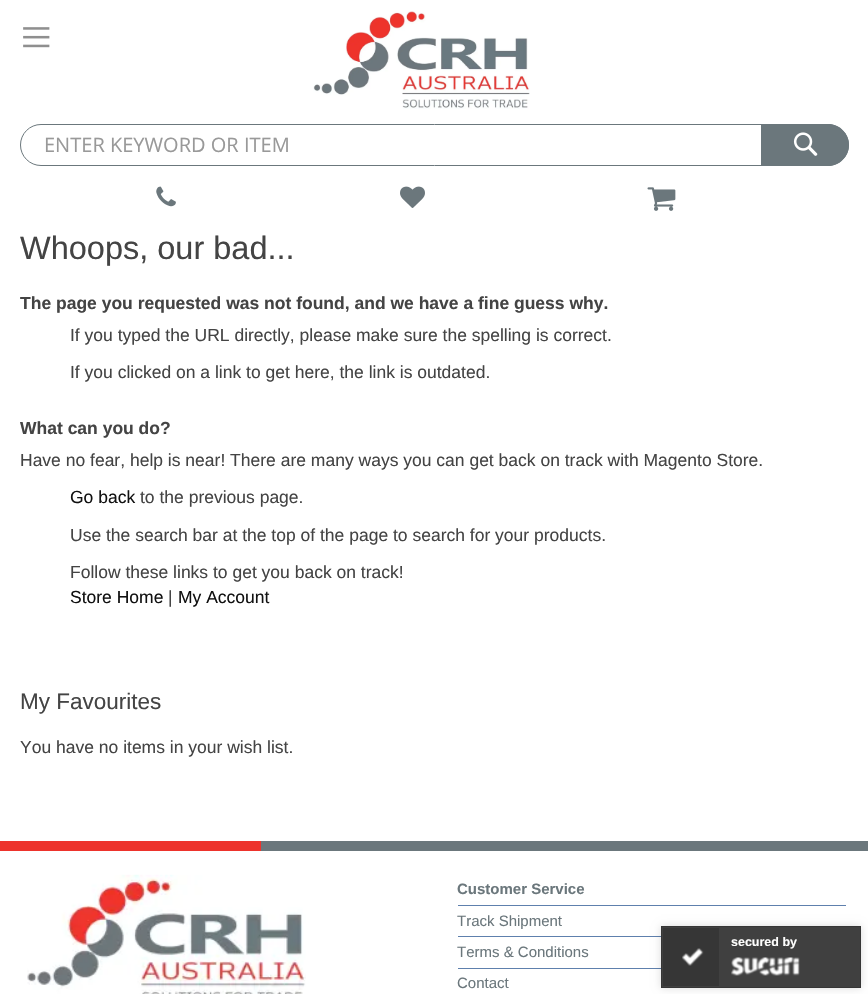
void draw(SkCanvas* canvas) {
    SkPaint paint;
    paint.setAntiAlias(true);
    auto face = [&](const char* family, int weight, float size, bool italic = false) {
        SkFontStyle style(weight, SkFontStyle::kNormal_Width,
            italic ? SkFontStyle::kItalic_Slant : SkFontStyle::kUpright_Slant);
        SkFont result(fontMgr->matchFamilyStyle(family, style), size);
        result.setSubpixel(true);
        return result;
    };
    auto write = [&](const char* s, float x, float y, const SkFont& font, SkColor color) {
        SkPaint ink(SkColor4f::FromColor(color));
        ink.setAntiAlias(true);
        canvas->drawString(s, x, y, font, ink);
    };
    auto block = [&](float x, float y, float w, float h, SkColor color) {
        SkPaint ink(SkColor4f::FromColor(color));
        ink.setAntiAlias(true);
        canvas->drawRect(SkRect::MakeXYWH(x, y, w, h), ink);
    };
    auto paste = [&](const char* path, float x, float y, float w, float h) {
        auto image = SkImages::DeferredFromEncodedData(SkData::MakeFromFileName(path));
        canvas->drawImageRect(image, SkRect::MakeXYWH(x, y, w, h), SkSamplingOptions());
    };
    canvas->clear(SK_ColorWHITE);
    paste("pic1.png", 23, 27, 27, 21);
    paste("pic2.png", 313, 11, 217, 98);
    paint.setStyle(SkPaint::kStroke_Style);
    paint.setStrokeWidth(1);
    paint.setColor(SkColorSetRGB(107, 119, 124));
    canvas->drawRoundRect(SkRect::MakeXYWH(20.5f, 124.5f, 828, 41), 20.5f, 20.5f, paint);
    auto kFont1 = face("Open Sans", 400, 20);
    write("ENTER KEYWORD OR ITEM", 44, 152, kFont1, SkColorSetRGB(153, 153, 153));
    paint.setStyle(SkPaint::kFill_Style);
    canvas->drawPath(SkPathBuilder().moveTo(761, 124).lineTo(828, 124).cubicTo(839.5f, 124, 849, 133.5f, 849, 145).cubicTo(849, 156.5f, 839.5f, 166, 828, 166).lineTo(761, 166).close().detach(), paint);
    paste("pic3.png", 793, 132, 25, 24);
    paste("pic4.png", 156, 186, 20, 21);
    paste("pic5.png", 400, 186, 25, 22);
    paste("pic6.png", 647, 187, 29, 24);
    auto kFont2 = face("Liberation Sans", 400, 32.5f);
    write("Whoops, our bad...", 20, 259, kFont2, SkColorSetRGB(68, 68, 68));
    auto kFont3 = face("Liberation Sans", 700, 17.5f);
    write("The page you requested was not found, and we have a fine guess why.", 20, 309, kFont3, SkColorSetRGB(68, 68, 68));
    auto kFont4 = face("Liberation Sans", 400, 17.5f);
    write("If you typed the URL directly, please make sure the spelling is correct.", 70, 341, kFont4, SkColorSetRGB(68, 68, 68));
    write("If you clicked on a link to get here, the link is outdated.", 70, 378, kFont4, SkColorSetRGB(68, 68, 68));
    write("What can you do?", 20, 434, kFont3, SkColorSetRGB(68, 68, 68));
    write("Have no fear, help is near! There are many ways you can get back on track with Magento Store.", 20, 466, kFont4, SkColorSetRGB(68, 68, 68));
    write("Go back", 70, 503, kFont4, SkColorSetRGB(17, 17, 17));
    write("to the previous page.", 140, 503, kFont4, SkColorSetRGB(68, 68, 68));
    write("Use the search bar at the top of the page to search for your products.", 70, 541, kFont4, SkColorSetRGB(68, 68, 68));
    write("Follow these links to get you back on track!", 70, 578, kFont4, SkColorSetRGB(68, 68, 68));
    write("Store Home", 70, 603, kFont4, SkColorSetRGB(17, 17, 17));
    write("|", 168, 603, kFont4, SkColorSetRGB(68, 68, 68));
    write("My Account", 178, 603, kFont4, SkColorSetRGB(17, 17, 17));
    auto kFont5 = face("Liberation Sans", 400, 22.5f);
    write("My Favourites", 20, 709, kFont5, SkColorSetRGB(68, 68, 68));
    write("You have no items in your wish list.", 20, 753, kFont4, SkColorSetRGB(68, 68, 68));
    block(0, 841, 261, 10, SkColorSetRGB(237, 51, 44));
    block(261, 841, 607, 10, SkColorSetRGB(107, 119, 124));
    paste("pic7.png", 27, 874, 279, 120);
    block(458, 905, 388, 1, SkColorSetRGB(94, 128, 173));
    auto kFont6 = face("Liberation Sans", 700, 15);
    write("Customer Service", 457, 894, kFont6, SkColorSetRGB(107, 119, 124));
    block(458, 936, 203, 1, SkColorSetRGB(94, 128, 173));
    auto kFont7 = face("Liberation Sans", 400, 15);
    write("Track Shipment", 457, 926, kFont7, SkColorSetRGB(107, 119, 124));
    block(458, 968, 203, 1, SkColorSetRGB(94, 128, 173));
    write("Terms & Conditions", 457, 957, kFont7, SkColorSetRGB(107, 119, 124));
    write("Contact", 457, 988, kFont7, SkColorSetRGB(107, 119, 124));
    paint.setColor(SkColorSetARGB(36, 0, 0, 0));
    paint.setMaskFilter(SkMaskFilter::MakeBlur(kNormal_SkBlurStyle, 4));
    canvas->drawRect(SkRect::MakeXYWH(661, 926, 200, 62), paint);
    paint.setMaskFilter(nullptr);
    paint.setColor(SkColorSetRGB(64, 64, 64));
    canvas->drawRect(SkRect::MakeXYWH(661.5f, 926.5f, 199, 61), paint);
    paint.setStyle(SkPaint::kStroke_Style);
    paint.setColor(SkColorSetRGB(54, 54, 54));
    canvas->drawRect(SkRect::MakeXYWH(661.5f, 926.5f, 199, 61), paint);
    block(663, 928, 56, 58, SkColorSetRGB(54, 54, 54));
    paste("pic8.png", 682, 948, 22, 18);
    auto kFont8 = face("Liberation Sans", 700, 12.5f);
    write("secured by", 731, 946, kFont8, SkColorSetRGB(254, 254, 253));
    paste("pic9.png", 731, 957, 69, 19);
}
